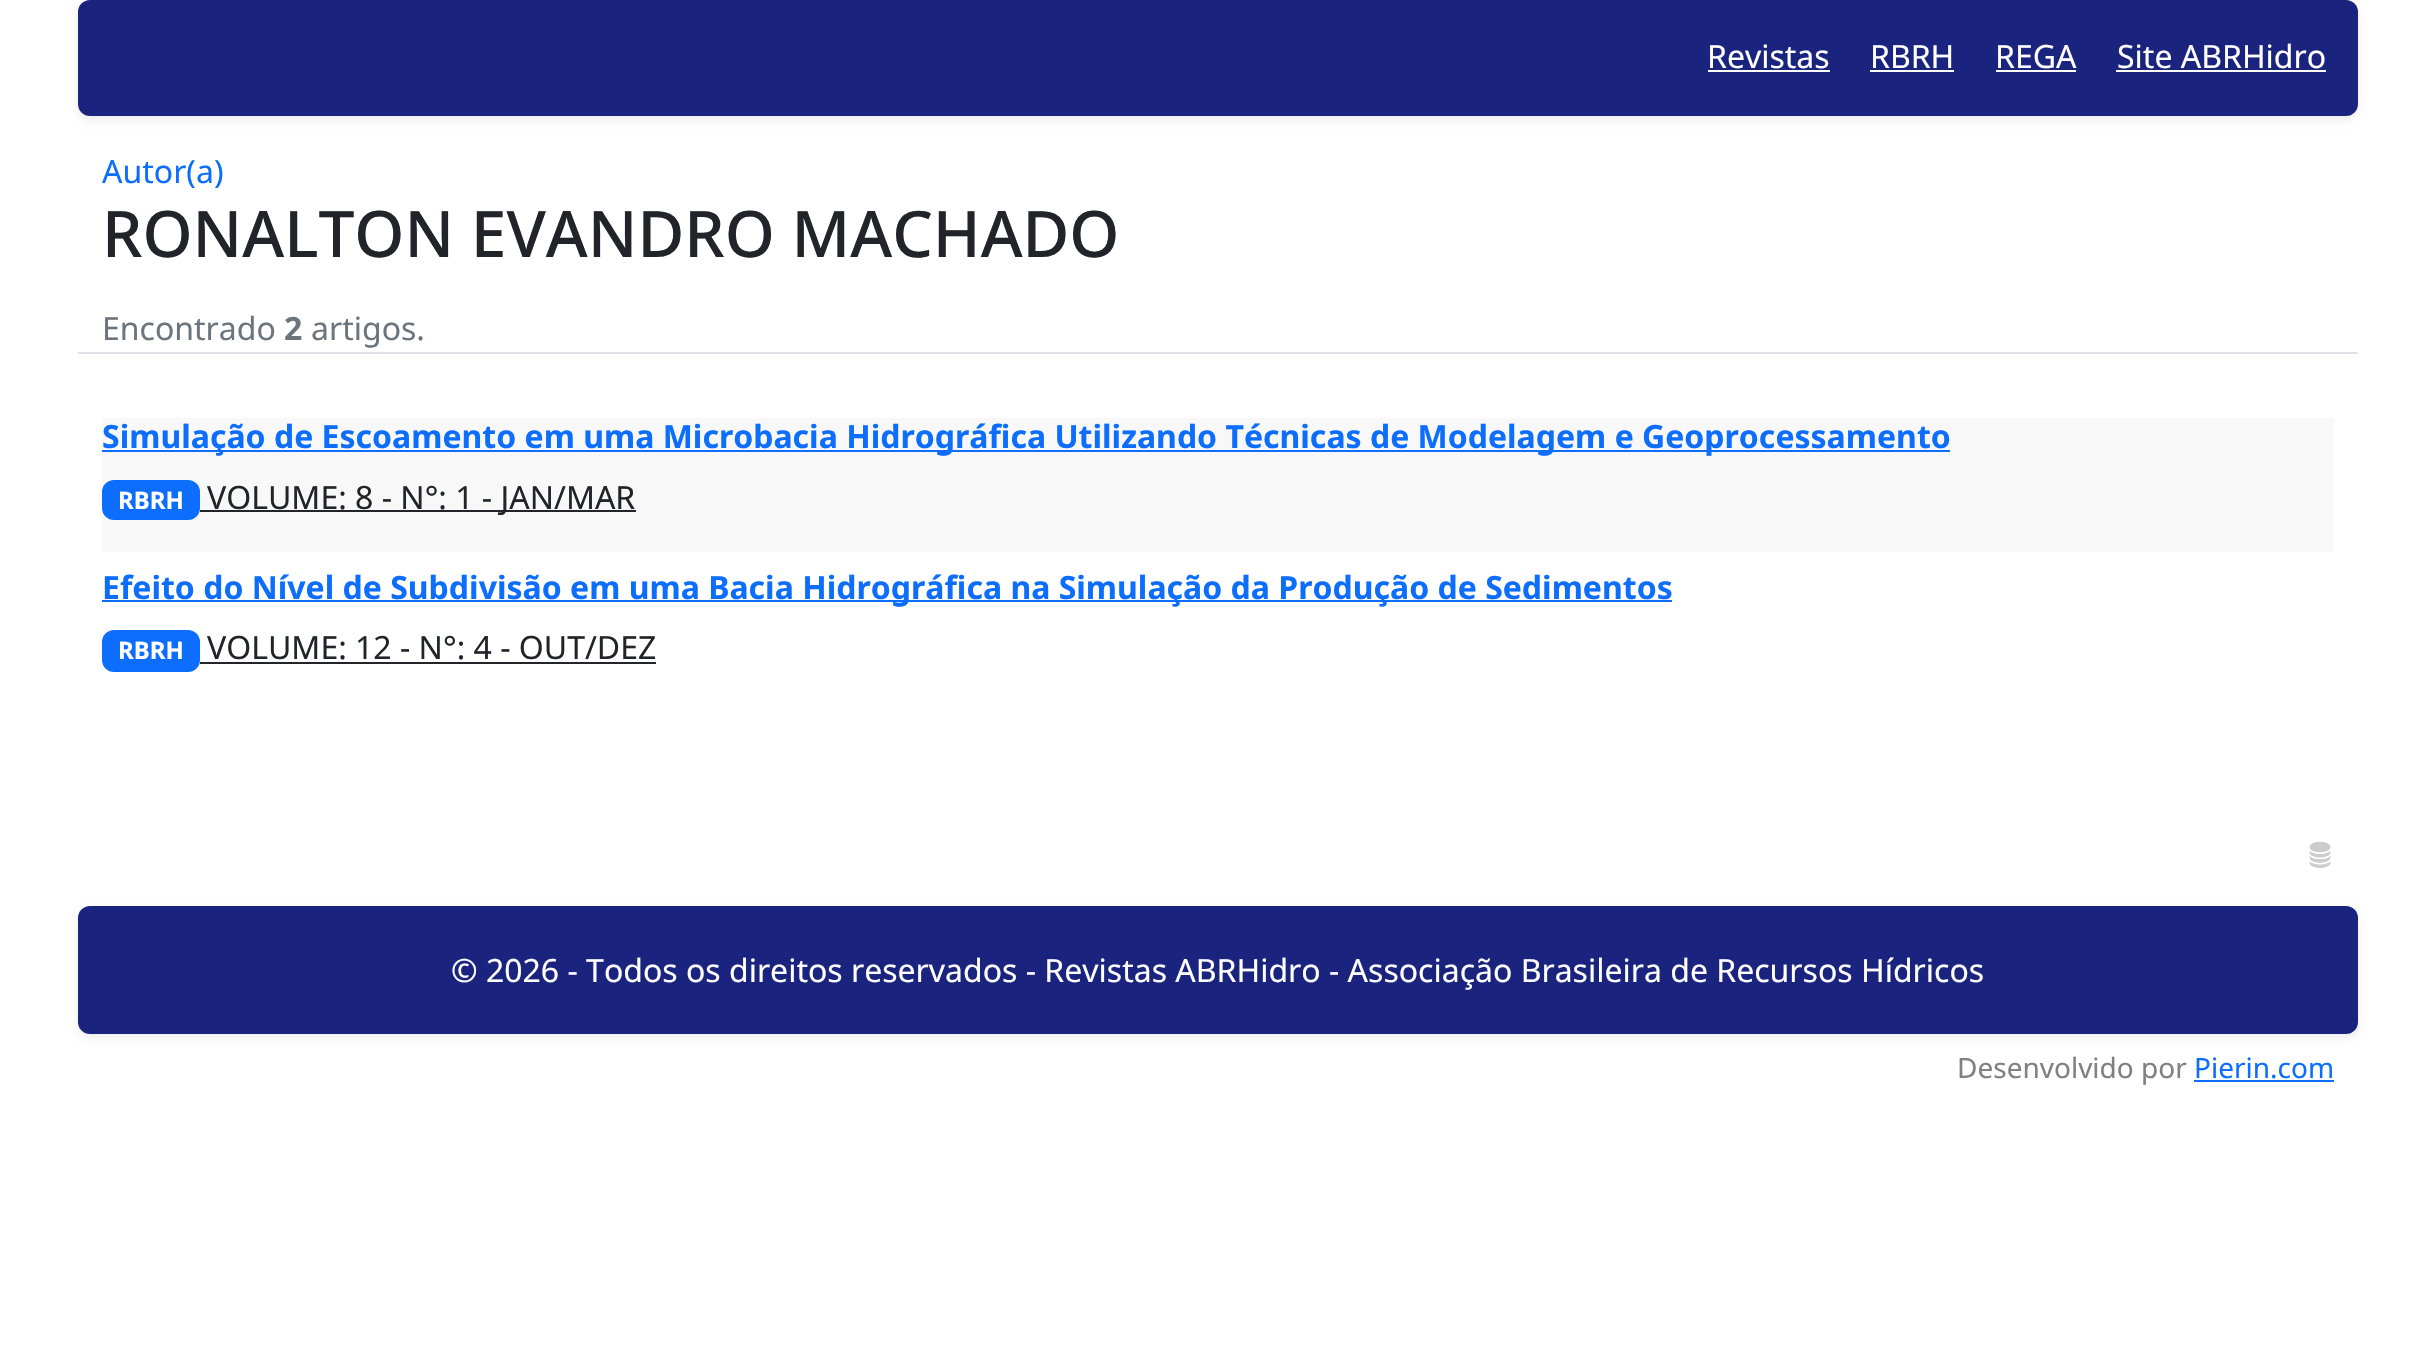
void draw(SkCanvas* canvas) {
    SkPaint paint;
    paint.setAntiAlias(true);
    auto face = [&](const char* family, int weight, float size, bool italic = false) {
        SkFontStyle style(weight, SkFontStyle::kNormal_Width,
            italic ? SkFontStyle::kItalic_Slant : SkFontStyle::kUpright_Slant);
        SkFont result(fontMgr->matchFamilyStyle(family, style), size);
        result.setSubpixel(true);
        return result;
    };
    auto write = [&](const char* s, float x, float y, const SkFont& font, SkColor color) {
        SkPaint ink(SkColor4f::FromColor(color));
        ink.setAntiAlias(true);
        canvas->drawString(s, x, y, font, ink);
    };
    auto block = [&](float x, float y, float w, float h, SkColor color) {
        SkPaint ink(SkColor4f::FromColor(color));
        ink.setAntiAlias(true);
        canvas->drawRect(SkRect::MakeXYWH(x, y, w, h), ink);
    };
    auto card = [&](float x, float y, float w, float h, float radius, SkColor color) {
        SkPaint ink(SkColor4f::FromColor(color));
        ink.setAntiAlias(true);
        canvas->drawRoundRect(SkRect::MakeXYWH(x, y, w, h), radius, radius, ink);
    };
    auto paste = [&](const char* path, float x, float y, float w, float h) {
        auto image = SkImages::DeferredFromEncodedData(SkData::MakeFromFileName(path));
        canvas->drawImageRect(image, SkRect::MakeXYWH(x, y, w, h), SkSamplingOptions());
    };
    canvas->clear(SK_ColorWHITE);
    paint.setColor(SkColorSetARGB(18, 0, 0, 0));
    paint.setMaskFilter(SkMaskFilter::MakeBlur(kNormal_SkBlurStyle, 4));
    canvas->drawRoundRect(SkRect::MakeXYWH(78, 4, 2280, 116), 12, 12, paint);
    paint.setMaskFilter(nullptr);
    card(78, 0, 2280, 116, 12, SkColorSetRGB(26, 35, 126));
    auto kFont1 = face("Noto Sans", 400, 32);
    write("Revistas", 1707, 68, kFont1, SK_ColorWHITE);
    block(1708, 70, 122, 2, SK_ColorWHITE);
    write("RBRH", 1870, 68, kFont1, SK_ColorWHITE);
    block(1870, 70, 84, 2, SK_ColorWHITE);
    write("REGA", 1995, 68, kFont1, SK_ColorWHITE);
    block(1996, 70, 80, 2, SK_ColorWHITE);
    write("Site ABRHidro", 2117, 68, kFont1, SK_ColorWHITE);
    block(2116, 70, 210, 2, SK_ColorWHITE);
    write("Autor(a)", 102, 183, kFont1, SkColorSetRGB(13, 110, 253));
    auto kFont2 = face("Noto Sans", 500, 64);
    write("RONALTON EVANDRO MACHADO", 102, 257, kFont2, SkColorSetRGB(33, 37, 41));
    block(78, 352, 2280, 2, SkColorSetRGB(222, 226, 230));
    write("Encontrado", 102, 340, kFont1, SkColorSetRGB(108, 117, 125));
    auto kFont3 = face("Noto Sans", 700, 32);
    write("2", 284, 340, kFont3, SkColorSetRGB(108, 117, 125));
    write("artigos.", 311, 340, kFont1, SkColorSetRGB(108, 117, 125));
    block(102, 418, 2232, 134, SkColorSetRGB(248, 248, 248));
    block(102, 450, 1848, 2, SkColorSetRGB(13, 110, 253));
    write("Simulação de Escoamento em uma Microbacia Hidrográfica Utilizando Técnicas de Modelagem e Geoprocessamento", 102, 448, kFont3, SkColorSetRGB(13, 110, 253));
    card(102, 480, 98, 40, 12, SkColorSetRGB(13, 110, 253));
    auto kFont4 = face("Noto Sans", 700, 24);
    write("RBRH", 118, 509, kFont4, SK_ColorWHITE);
    block(200, 510, 436, 2, SkColorSetRGB(33, 37, 41));
    write("VOLUME: 8 - N°: 1 - JAN/MAR", 207, 509, kFont1, SkColorSetRGB(33, 37, 41));
    block(102, 600, 1570, 2, SkColorSetRGB(13, 110, 253));
    write("Efeito do Nível de Subdivisão em uma Bacia Hidrográfica na Simulação da Produção de Sedimentos", 102, 599, kFont3, SkColorSetRGB(13, 110, 253));
    card(102, 630, 98, 42, 12, SkColorSetRGB(13, 110, 253));
    write("RBRH", 118, 659, kFont4, SK_ColorWHITE);
    write("VOLUME: 12 - N°: 4 - OUT/DEZ", 207, 659, kFont1, SkColorSetRGB(33, 37, 41));
    block(200, 662, 456, 2, SkColorSetRGB(33, 37, 41));
    paste("pic1.png", 2309, 841, 22, 27);
    paint.setMaskFilter(SkMaskFilter::MakeBlur(kNormal_SkBlurStyle, 4));
    canvas->drawRoundRect(SkRect::MakeXYWH(78, 910, 2280, 128), 12, 12, paint);
    paint.setMaskFilter(nullptr);
    card(78, 906, 2280, 128, 12, SkColorSetRGB(26, 35, 126));
    write("© 2026 - Todos os direitos reservados - Revistas ABRHidro - Associação Brasileira de Recursos Hídricos", 451, 982, kFont1, SK_ColorWHITE);
    auto kFont5 = face("Noto Sans", 400, 28);
    write("Desenvolvido por", 1957, 1078, kFont5, SkColorSetRGB(128, 128, 128));
    write("Pierin.com", 2194, 1078, kFont5, SkColorSetRGB(13, 110, 253));
    block(2194, 1080, 140, 2, SkColorSetRGB(13, 110, 253));
}
